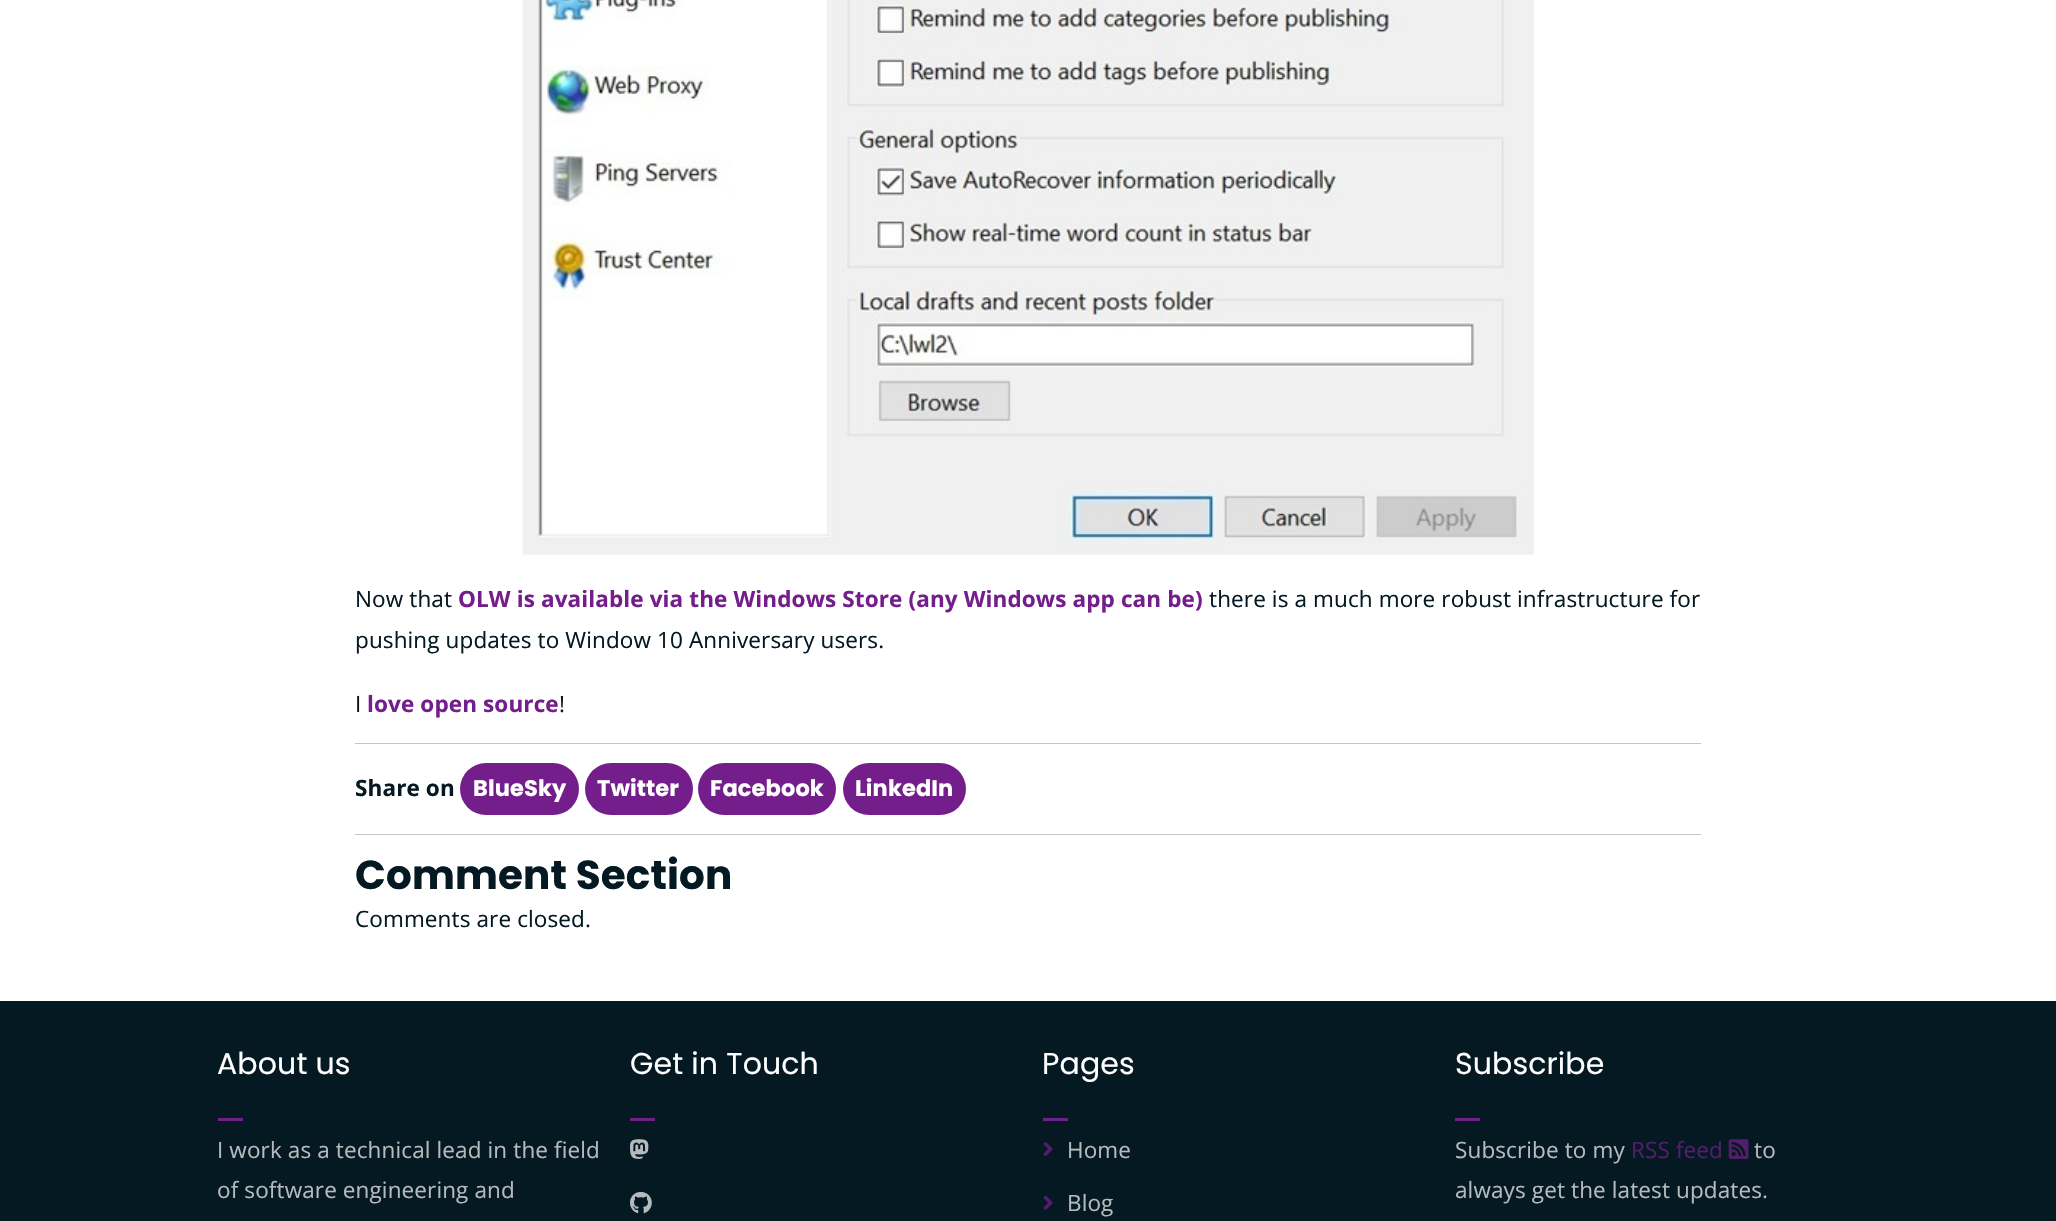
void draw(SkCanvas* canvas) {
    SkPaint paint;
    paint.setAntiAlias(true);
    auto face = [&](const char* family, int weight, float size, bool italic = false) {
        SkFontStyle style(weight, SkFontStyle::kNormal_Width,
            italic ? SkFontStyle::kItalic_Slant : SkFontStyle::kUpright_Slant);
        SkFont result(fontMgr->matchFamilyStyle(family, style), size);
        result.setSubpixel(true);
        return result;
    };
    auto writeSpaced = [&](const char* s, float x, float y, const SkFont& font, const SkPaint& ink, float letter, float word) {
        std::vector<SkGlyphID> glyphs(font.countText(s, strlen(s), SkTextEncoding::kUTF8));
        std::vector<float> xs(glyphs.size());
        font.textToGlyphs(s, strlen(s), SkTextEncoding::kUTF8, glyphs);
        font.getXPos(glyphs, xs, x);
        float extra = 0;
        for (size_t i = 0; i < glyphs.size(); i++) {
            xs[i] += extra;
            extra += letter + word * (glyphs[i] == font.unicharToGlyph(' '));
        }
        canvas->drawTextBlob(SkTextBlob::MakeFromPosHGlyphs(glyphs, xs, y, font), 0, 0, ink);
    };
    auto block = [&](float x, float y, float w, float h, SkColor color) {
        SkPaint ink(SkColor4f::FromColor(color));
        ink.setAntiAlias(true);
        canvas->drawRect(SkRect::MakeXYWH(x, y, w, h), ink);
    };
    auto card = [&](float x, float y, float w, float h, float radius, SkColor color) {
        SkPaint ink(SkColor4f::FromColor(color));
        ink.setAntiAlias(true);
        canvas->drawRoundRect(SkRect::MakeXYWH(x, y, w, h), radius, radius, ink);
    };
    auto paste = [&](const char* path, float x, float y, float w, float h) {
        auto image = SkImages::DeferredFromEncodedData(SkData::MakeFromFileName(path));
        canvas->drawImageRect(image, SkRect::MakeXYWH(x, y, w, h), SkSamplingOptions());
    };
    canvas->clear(SK_ColorWHITE);
    paste("pic1.png", 522, 0, 1012, 555);
    auto kFont1 = face("Open Sans", 400, 22.5f);
    paint.setColor(SkColorSetRGB(5, 25, 34));
    writeSpaced("Now that", 355, 607, kFont1, paint, 0.12f, 0);
    auto kFont2 = face("Open Sans", 700, 22.5f);
    paint.setColor(SkColorSetRGB(116, 30, 139));
    writeSpaced("OLW is available via the Windows Store (any Windows app can be)", 458, 607, kFont2, paint, 0.12f, 0);
    paint.setColor(SkColorSetRGB(5, 25, 34));
    writeSpaced("there is a much more robust infrastructure for", 1209, 607, kFont1, paint, 0.12f, 0);
    writeSpaced("pushing updates to Window 10 Anniversary users.", 355, 648, kFont1, paint, 0.12f, 0);
    writeSpaced("I", 355, 712, kFont1, paint, 0.12f, 0);
    paint.setColor(SkColorSetRGB(116, 30, 139));
    writeSpaced("love open source", 367, 712, kFont2, paint, 0.12f, 0);
    paint.setColor(SkColorSetRGB(5, 25, 34));
    writeSpaced("!", 559, 712, kFont1, paint, 0.12f, 0);
    block(355, 743, 1346, 1, SkColorSetRGB(193, 198, 200));
    writeSpaced("Share on", 355, 796, kFont2, paint, 0.12f, 0);
    card(460, 763, 119, 52, 26, SkColorSetRGB(116, 30, 139));
    auto kFont3 = face("Poppins", 700, 22.5f);
    paint.setColor(SK_ColorWHITE);
    writeSpaced("BlueSky", 473, 796, kFont3, paint, 0.12f, 0);
    card(585, 763, 108, 52, 26, SkColorSetRGB(116, 30, 139));
    writeSpaced("Twitter", 597, 796, kFont3, paint, 0.12f, 0);
    card(698, 763, 138, 52, 26, SkColorSetRGB(116, 30, 139));
    writeSpaced("Facebook", 710, 796, kFont3, paint, 0.12f, 0);
    card(843, 763, 123, 52, 26, SkColorSetRGB(116, 30, 139));
    writeSpaced("LinkedIn", 855, 796, kFont3, paint, 0.12f, 0);
    block(355, 834, 1346, 1, SkColorSetRGB(193, 198, 200));
    auto kFont4 = face("Poppins", 700, 40.5f);
    paint.setColor(SkColorSetRGB(5, 25, 34));
    writeSpaced("Comment Section", 355, 889, kFont4, paint, 0.12f, 0);
    writeSpaced("Comments are closed.", 355, 927, kFont1, paint, 0.12f, 0);
    block(0, 1001, 2056, 220, SkColorSetRGB(5, 25, 34));
    auto kFont5 = face("Poppins", 400, 30);
    paint.setColor(SK_ColorWHITE);
    writeSpaced("About us", 217, 1074, kFont5, paint, 0.12f, 0);
    block(218, 1118, 25, 3, SkColorSetRGB(116, 30, 139));
    paint.setColor(SkColorSetRGB(180, 186, 189));
    writeSpaced("I work as a technical lead in the field", 217, 1158, kFont1, paint, 0.12f, 0);
    writeSpaced("of software engineering and", 217, 1198, kFont1, paint, 0.12f, 0);
    paint.setColor(SK_ColorWHITE);
    writeSpaced("Get in Touch", 630, 1074, kFont5, paint, 0.12f, 0);
    block(630, 1118, 25, 3, SkColorSetRGB(116, 30, 139));
    paste("pic2.png", 630, 1139, 19, 20);
    paste("pic3.png", 630, 1191, 22, 23);
    writeSpaced("Pages", 1042, 1074, kFont5, paint, 0.12f, 0);
    block(1043, 1118, 25, 3, SkColorSetRGB(116, 30, 139));
    paste("pic4.png", 1043, 1142, 10, 14);
    paint.setColor(SkColorSetRGB(180, 186, 189));
    writeSpaced("Home", 1067, 1158, kFont1, paint, 0.12f, 0);
    paste("pic5.png", 1043, 1195, 10, 15);
    writeSpaced("Blog", 1067, 1211, kFont1, paint, 0.12f, 0);
    paint.setColor(SK_ColorWHITE);
    writeSpaced("Subscribe", 1455, 1074, kFont5, paint, 0.12f, 0);
    block(1455, 1118, 25, 3, SkColorSetRGB(116, 30, 139));
    paint.setColor(SkColorSetRGB(180, 186, 189));
    writeSpaced("Subscribe to my", 1455, 1158, kFont1, paint, 0.12f, 0);
    paint.setColor(SkColorSetRGB(83, 29, 108));
    writeSpaced("RSS feed", 1631, 1158, kFont1, paint, 0.12f, 0);
    paste("pic6.png", 1728, 1139, 21, 20);
    paint.setColor(SkColorSetRGB(180, 186, 189));
    writeSpaced("to", 1754, 1158, kFont1, paint, 0.12f, 0);
    writeSpaced("always get the latest updates.", 1455, 1198, kFont1, paint, 0.12f, 0);
}
